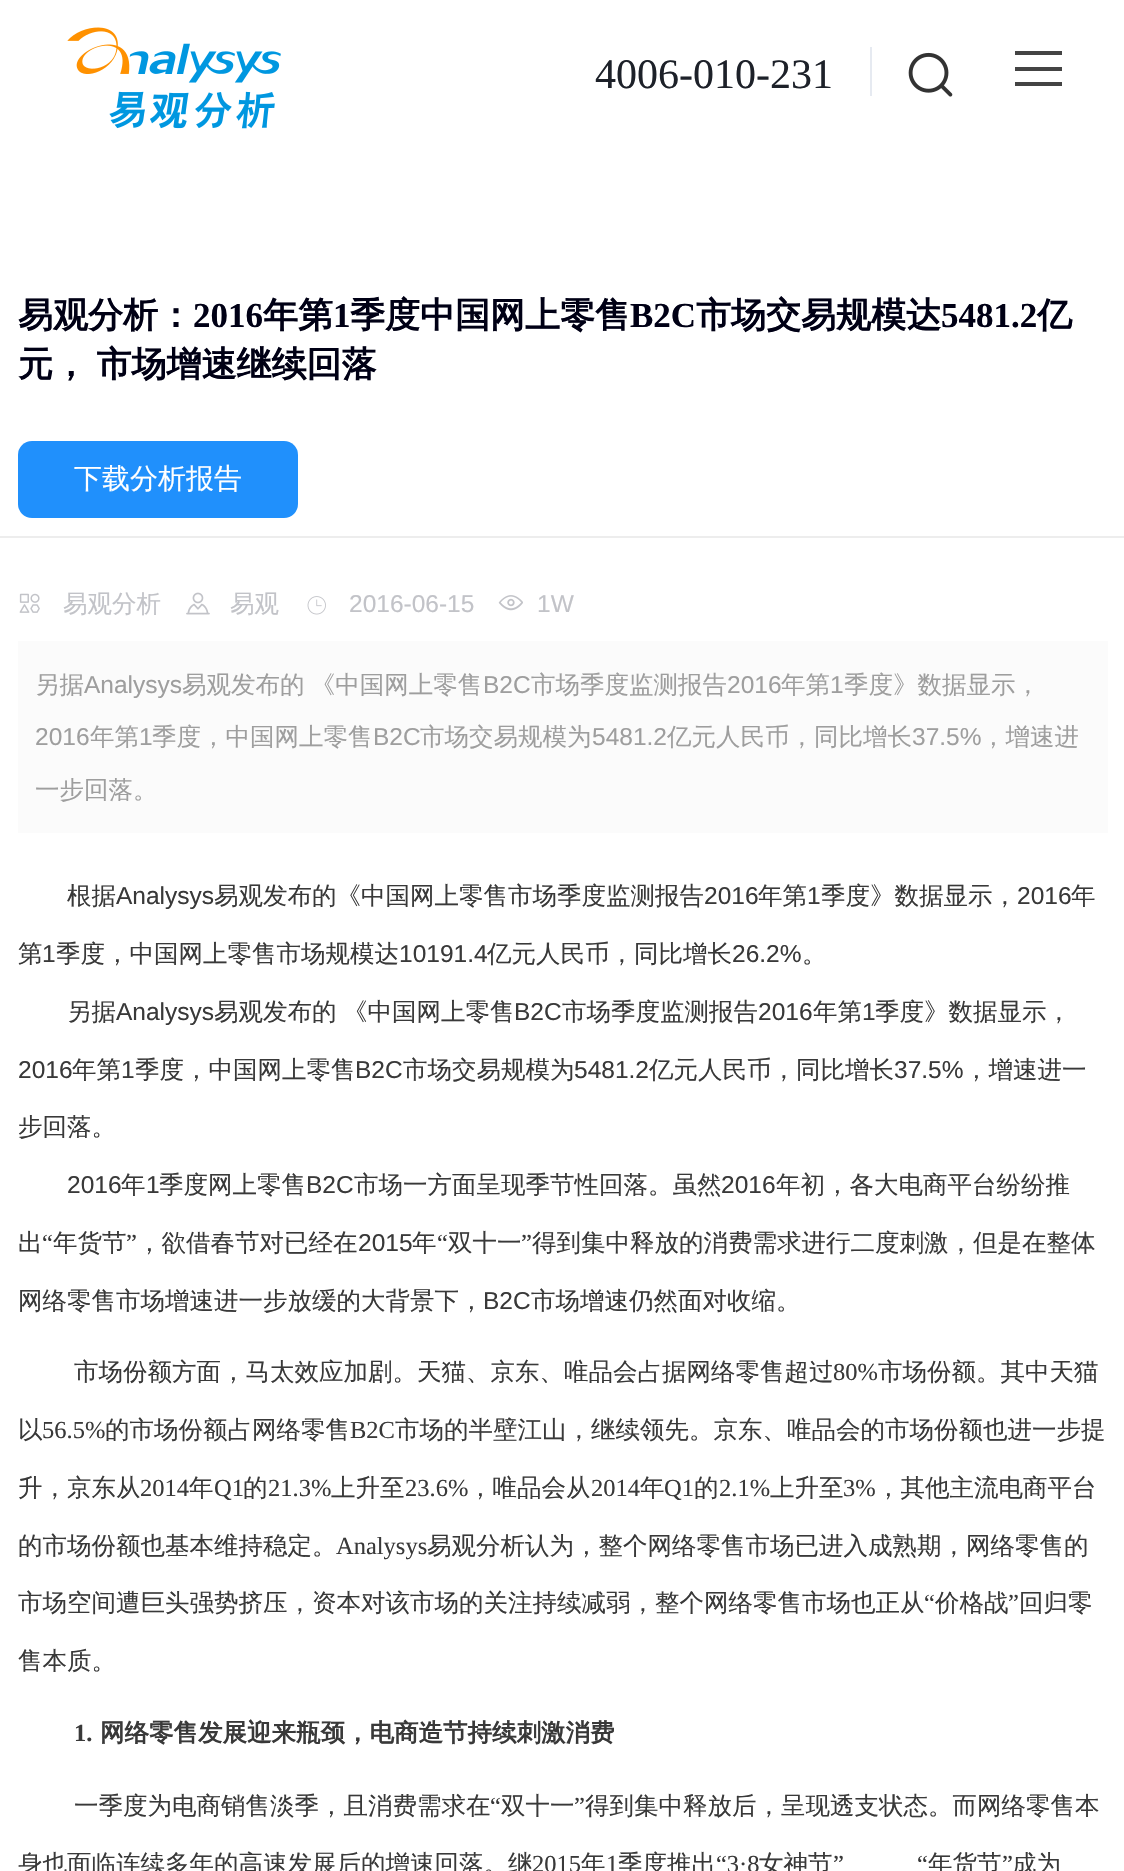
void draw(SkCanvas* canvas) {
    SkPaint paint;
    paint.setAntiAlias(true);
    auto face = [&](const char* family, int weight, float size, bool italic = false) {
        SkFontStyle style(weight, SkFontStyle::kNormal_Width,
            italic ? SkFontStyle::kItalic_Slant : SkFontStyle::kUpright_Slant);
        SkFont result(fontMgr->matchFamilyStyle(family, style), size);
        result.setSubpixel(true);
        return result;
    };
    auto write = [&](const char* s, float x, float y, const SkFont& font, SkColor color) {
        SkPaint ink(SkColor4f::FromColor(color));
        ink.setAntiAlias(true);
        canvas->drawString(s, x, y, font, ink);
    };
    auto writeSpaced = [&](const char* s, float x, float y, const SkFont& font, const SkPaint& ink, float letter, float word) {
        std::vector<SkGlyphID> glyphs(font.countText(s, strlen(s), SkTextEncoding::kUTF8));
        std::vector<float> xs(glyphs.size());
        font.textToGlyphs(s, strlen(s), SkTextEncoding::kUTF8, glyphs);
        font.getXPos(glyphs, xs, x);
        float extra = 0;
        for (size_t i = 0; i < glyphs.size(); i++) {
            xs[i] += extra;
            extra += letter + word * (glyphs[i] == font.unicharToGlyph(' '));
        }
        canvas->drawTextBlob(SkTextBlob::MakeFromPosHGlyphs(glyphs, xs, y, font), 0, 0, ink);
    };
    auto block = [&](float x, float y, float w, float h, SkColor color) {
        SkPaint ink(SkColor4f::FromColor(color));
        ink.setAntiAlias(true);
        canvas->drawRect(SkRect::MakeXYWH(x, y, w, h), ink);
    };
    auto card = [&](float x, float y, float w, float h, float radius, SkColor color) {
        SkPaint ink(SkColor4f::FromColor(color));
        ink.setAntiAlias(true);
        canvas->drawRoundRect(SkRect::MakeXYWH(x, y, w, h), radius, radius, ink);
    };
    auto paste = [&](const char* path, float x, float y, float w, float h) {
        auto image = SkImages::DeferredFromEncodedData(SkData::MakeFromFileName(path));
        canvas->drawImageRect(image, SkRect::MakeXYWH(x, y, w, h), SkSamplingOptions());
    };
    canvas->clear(SK_ColorWHITE);
    paste("pic1.png", 67, 27, 214, 102);
    auto kFont1 = face("Liberation Serif", 400, 42);
    write("4006-010-231", 595, 88, kFont1, SkColorSetRGB(29, 33, 41));
    block(870, 47, 2, 49, SkColorSetRGB(230, 234, 241));
    paste("pic2.png", 908, 52, 45, 45);
    block(1015, 51, 47, 4, SkColorSetRGB(68, 68, 68));
    block(1015, 67, 47, 4, SkColorSetRGB(68, 68, 68));
    block(1015, 82, 47, 4, SkColorSetRGB(68, 68, 68));
    block(0, 536, 1124, 2, SkColorSetRGB(237, 237, 237));
    auto kFont2 = face("WenQuanYi Zen Hei", 700, 35);
    write("易观分析：", 18, 327, kFont2, SkColorSetRGB(0, 0, 21));
    auto kFont3 = face("Liberation Serif", 700, 35);
    write("2016", 193, 327, kFont3, SkColorSetRGB(0, 0, 21));
    write("年第", 263, 327, kFont2, SkColorSetRGB(0, 0, 21));
    write("1", 333, 327, kFont3, SkColorSetRGB(0, 0, 21));
    write("季度中国网上零售", 350, 327, kFont2, SkColorSetRGB(0, 0, 21));
    write("B2C", 630, 327, kFont3, SkColorSetRGB(0, 0, 21));
    write("市场交易规模达", 696, 327, kFont2, SkColorSetRGB(0, 0, 21));
    write("5481.2", 941, 327, kFont3, SkColorSetRGB(0, 0, 21));
    write("亿", 1037, 327, kFont2, SkColorSetRGB(0, 0, 21));
    paint.setColor(SkColorSetRGB(0, 0, 21));
    writeSpaced("元， 市场增速继续回落", 18, 376, kFont2, paint, 0, -2);
    card(18, 441, 280, 77, 14, SkColorSetRGB(32, 144, 252));
    auto kFont4 = face("WenQuanYi Zen Hei", 500, 28);
    write("下载分析报告", 74, 488, kFont4, SK_ColorWHITE);
    paste("pic3.png", 19, 593, 21, 20);
    auto kFont5 = face("WenQuanYi Zen Hei", 500, 24.5f);
    write("易观分析", 63, 612, kFont5, SkColorSetRGB(194, 195, 200));
    paste("pic4.png", 186, 592, 24, 23);
    write("易观", 230, 612, kFont5, SkColorSetRGB(194, 195, 200));
    paste("pic5.png", 307, 596, 19, 19);
    auto kFont6 = face("Liberation Sans", 400, 24.5f);
    write("2016-06-15", 349, 612, kFont6, SkColorSetRGB(194, 195, 200));
    paste("pic6.png", 498, 595, 25, 16);
    write("1W", 537, 612, kFont6, SkColorSetRGB(194, 195, 200));
    block(18, 641, 1090, 192, SkColorSetRGB(251, 251, 251));
    write("另据", 35, 693, kFont5, SkColorSetRGB(158, 158, 158));
    write("Analysys", 84, 693, kFont6, SkColorSetRGB(158, 158, 158));
    paint.setColor(SkColorSetRGB(158, 158, 158));
    writeSpaced("易观发布的 《中国网上零售", 182, 693, kFont5, paint, 0, -1);
    write("B2C", 483, 693, kFont6, SkColorSetRGB(158, 158, 158));
    write("市场季度监测报告", 531, 693, kFont5, SkColorSetRGB(158, 158, 158));
    write("2016", 727, 693, kFont6, SkColorSetRGB(158, 158, 158));
    write("年第", 781, 693, kFont5, SkColorSetRGB(158, 158, 158));
    write("1", 830, 693, kFont6, SkColorSetRGB(158, 158, 158));
    write("季度》数据显示，", 844, 693, kFont5, SkColorSetRGB(158, 158, 158));
    write("2016", 35, 745, kFont6, SkColorSetRGB(158, 158, 158));
    write("年第", 90, 745, kFont5, SkColorSetRGB(158, 158, 158));
    write("1", 139, 745, kFont6, SkColorSetRGB(158, 158, 158));
    write("季度，中国网上零售", 152, 745, kFont5, SkColorSetRGB(158, 158, 158));
    write("B2C", 373, 745, kFont6, SkColorSetRGB(158, 158, 158));
    write("市场交易规模为", 420, 745, kFont5, SkColorSetRGB(158, 158, 158));
    write("5481.2", 592, 745, kFont6, SkColorSetRGB(158, 158, 158));
    write("亿元人民币，同比增长", 667, 745, kFont5, SkColorSetRGB(158, 158, 158));
    write("37.5%", 912, 745, kFont6, SkColorSetRGB(158, 158, 158));
    write("，增速进", 981, 745, kFont5, SkColorSetRGB(158, 158, 158));
    write("一步回落。", 35, 798, kFont5, SkColorSetRGB(158, 158, 158));
    write("根据", 67, 904, kFont5, SkColorSetRGB(57, 57, 57));
    write("Analysys", 116, 904, kFont6, SkColorSetRGB(57, 57, 57));
    write("易观发布的《中国网上零售市场季度监测报告", 214, 904, kFont5, SkColorSetRGB(57, 57, 57));
    write("2016", 704, 904, kFont6, SkColorSetRGB(57, 57, 57));
    write("年第", 758, 904, kFont5, SkColorSetRGB(57, 57, 57));
    write("1", 807, 904, kFont6, SkColorSetRGB(57, 57, 57));
    write("季度》数据显示，", 821, 904, kFont5, SkColorSetRGB(57, 57, 57));
    write("2016", 1017, 904, kFont6, SkColorSetRGB(57, 57, 57));
    write("年", 1071, 904, kFont5, SkColorSetRGB(57, 57, 57));
    write("第", 18, 962, kFont5, SkColorSetRGB(57, 57, 57));
    write("1", 42, 962, kFont6, SkColorSetRGB(57, 57, 57));
    write("季度，中国网上零售市场规模达", 56, 962, kFont5, SkColorSetRGB(57, 57, 57));
    write("10191.4", 399, 962, kFont6, SkColorSetRGB(57, 57, 57));
    write("亿元人民币，同比增长", 487, 962, kFont5, SkColorSetRGB(57, 57, 57));
    write("26.2%", 732, 962, kFont6, SkColorSetRGB(57, 57, 57));
    write("。", 802, 962, kFont5, SkColorSetRGB(57, 57, 57));
    write("另据", 67, 1020, kFont5, SkColorSetRGB(57, 57, 57));
    write("Analysys", 116, 1020, kFont6, SkColorSetRGB(57, 57, 57));
    write("易观发布的", 214, 1020, kFont5, SkColorSetRGB(57, 57, 57));
    write("《中国网上零售", 343, 1020, kFont5, SkColorSetRGB(57, 57, 57));
    write("B2C", 514, 1020, kFont6, SkColorSetRGB(57, 57, 57));
    write("市场季度监测报告", 562, 1020, kFont5, SkColorSetRGB(57, 57, 57));
    write("2016", 758, 1020, kFont6, SkColorSetRGB(57, 57, 57));
    write("年第", 813, 1020, kFont5, SkColorSetRGB(57, 57, 57));
    write("1", 862, 1020, kFont6, SkColorSetRGB(57, 57, 57));
    write("季度》数据显示，", 875, 1020, kFont5, SkColorSetRGB(57, 57, 57));
    write("2016", 18, 1078, kFont6, SkColorSetRGB(57, 57, 57));
    write("年第", 72, 1078, kFont5, SkColorSetRGB(57, 57, 57));
    write("1", 121, 1078, kFont6, SkColorSetRGB(57, 57, 57));
    write("季度，中国网上零售", 135, 1078, kFont5, SkColorSetRGB(57, 57, 57));
    write("B2C", 355, 1078, kFont6, SkColorSetRGB(57, 57, 57));
    write("市场交易规模为", 403, 1078, kFont5, SkColorSetRGB(57, 57, 57));
    write("5481.2", 574, 1078, kFont6, SkColorSetRGB(57, 57, 57));
    write("亿元人民币，同比增长", 649, 1078, kFont5, SkColorSetRGB(57, 57, 57));
    write("37.5%", 894, 1078, kFont6, SkColorSetRGB(57, 57, 57));
    write("，增速进一", 964, 1078, kFont5, SkColorSetRGB(57, 57, 57));
    write("步回落。", 18, 1135, kFont5, SkColorSetRGB(57, 57, 57));
    write("2016", 67, 1193, kFont6, SkColorSetRGB(57, 57, 57));
    write("年", 121, 1193, kFont5, SkColorSetRGB(57, 57, 57));
    write("1", 146, 1193, kFont6, SkColorSetRGB(57, 57, 57));
    write("季度网上零售", 159, 1193, kFont5, SkColorSetRGB(57, 57, 57));
    write("B2C", 306, 1193, kFont6, SkColorSetRGB(57, 57, 57));
    write("市场一方面呈现季节性回落。虽然", 354, 1193, kFont5, SkColorSetRGB(57, 57, 57));
    write("2016", 721, 1193, kFont6, SkColorSetRGB(57, 57, 57));
    write("年初，各大电商平台纷纷推", 776, 1193, kFont5, SkColorSetRGB(57, 57, 57));
    write("出", 18, 1251, kFont5, SkColorSetRGB(57, 57, 57));
    auto kFont7 = face("Liberation Serif", 400, 24.5f);
    write("“", 42, 1251, kFont7, SkColorSetRGB(57, 57, 57));
    write("年货节", 53, 1251, kFont5, SkColorSetRGB(57, 57, 57));
    write("”", 126, 1251, kFont7, SkColorSetRGB(57, 57, 57));
    write("，欲借春节对已经在", 137, 1251, kFont5, SkColorSetRGB(57, 57, 57));
    write("2015", 358, 1251, kFont6, SkColorSetRGB(57, 57, 57));
    write("年", 412, 1251, kFont5, SkColorSetRGB(57, 57, 57));
    write("“", 437, 1251, kFont7, SkColorSetRGB(57, 57, 57));
    write("双十一", 448, 1251, kFont5, SkColorSetRGB(57, 57, 57));
    write("”", 521, 1251, kFont7, SkColorSetRGB(57, 57, 57));
    write("得到集中释放的消费需求进行二度刺激，但是在整体", 532, 1251, kFont5, SkColorSetRGB(57, 57, 57));
    write("网络零售市场增速进一步放缓的大背景下，", 18, 1309, kFont5, SkColorSetRGB(57, 57, 57));
    write("B2C", 483, 1309, kFont6, SkColorSetRGB(57, 57, 57));
    write("市场增速仍然面对收缩。", 531, 1309, kFont5, SkColorSetRGB(57, 57, 57));
    write("市场份额方面，马太效应加剧。天猫、京东、唯品会占据网络零售超过", 74, 1380, kFont5, SkColorSetRGB(57, 57, 57));
    write("80%", 833, 1380, kFont7, SkColorSetRGB(57, 57, 57));
    write("市场份额。其中天猫", 878, 1380, kFont5, SkColorSetRGB(57, 57, 57));
    write("以", 18, 1438, kFont5, SkColorSetRGB(57, 57, 57));
    write("56.5%", 42, 1438, kFont7, SkColorSetRGB(57, 57, 57));
    write("的市场份额占网络零售", 105, 1438, kFont5, SkColorSetRGB(57, 57, 57));
    write("B2C", 350, 1438, kFont7, SkColorSetRGB(57, 57, 57));
    write("市场的半壁江山，继续领先。京东、唯品会的市场份额也进一步提", 395, 1438, kFont5, SkColorSetRGB(57, 57, 57));
    write("升，京东从", 18, 1496, kFont5, SkColorSetRGB(57, 57, 57));
    write("2014", 140, 1496, kFont7, SkColorSetRGB(57, 57, 57));
    write("年", 189, 1496, kFont5, SkColorSetRGB(57, 57, 57));
    write("Q1", 214, 1496, kFont7, SkColorSetRGB(57, 57, 57));
    write("的", 243, 1496, kFont5, SkColorSetRGB(57, 57, 57));
    write("21.3%", 268, 1496, kFont7, SkColorSetRGB(57, 57, 57));
    write("上升至", 331, 1496, kFont5, SkColorSetRGB(57, 57, 57));
    write("23.6%", 405, 1496, kFont7, SkColorSetRGB(57, 57, 57));
    write("，唯品会从", 468, 1496, kFont5, SkColorSetRGB(57, 57, 57));
    write("2014", 591, 1496, kFont7, SkColorSetRGB(57, 57, 57));
    write("年", 640, 1496, kFont5, SkColorSetRGB(57, 57, 57));
    write("Q1", 664, 1496, kFont7, SkColorSetRGB(57, 57, 57));
    write("的", 694, 1496, kFont5, SkColorSetRGB(57, 57, 57));
    write("2.1%", 719, 1496, kFont7, SkColorSetRGB(57, 57, 57));
    write("上升至", 770, 1496, kFont5, SkColorSetRGB(57, 57, 57));
    write("3%", 843, 1496, kFont7, SkColorSetRGB(57, 57, 57));
    write("，其他主流电商平台", 876, 1496, kFont5, SkColorSetRGB(57, 57, 57));
    write("的市场份额也基本维持稳定。", 18, 1554, kFont5, SkColorSetRGB(57, 57, 57));
    write("Analysys", 336, 1554, kFont7, SkColorSetRGB(57, 57, 57));
    write("易观分析认为，整个网络零售市场已进入成熟期，网络零售的", 427, 1554, kFont5, SkColorSetRGB(57, 57, 57));
    write("市场空间遭巨头强势挤压，资本对该市场的关注持续减弱，整个网络零售市场也正从", 18, 1611, kFont5, SkColorSetRGB(57, 57, 57));
    write("“", 924, 1611, kFont7, SkColorSetRGB(57, 57, 57));
    write("价格战", 935, 1611, kFont5, SkColorSetRGB(57, 57, 57));
    write("”", 1008, 1611, kFont7, SkColorSetRGB(57, 57, 57));
    write("回归零", 1019, 1611, kFont5, SkColorSetRGB(57, 57, 57));
    write("售本质。", 18, 1669, kFont5, SkColorSetRGB(57, 57, 57));
    auto kFont8 = face("Liberation Serif", 700, 24.5f);
    write("1.", 74, 1741, kFont8, SkColorSetRGB(57, 57, 57));
    auto kFont9 = face("WenQuanYi Zen Hei", 700, 24.5f);
    write("网络零售发展迎来瓶颈，电商造节持续刺激消费", 100, 1741, kFont9, SkColorSetRGB(57, 57, 57));
    write("一季度为电商销售淡季，且消费需求在", 74, 1814, kFont5, SkColorSetRGB(57, 57, 57));
    write("“", 490, 1814, kFont7, SkColorSetRGB(57, 57, 57));
    write("双十一", 501, 1814, kFont5, SkColorSetRGB(57, 57, 57));
    write("”", 574, 1814, kFont7, SkColorSetRGB(57, 57, 57));
    write("得到集中释放后，呈现透支状态。而网络零售本", 585, 1814, kFont5, SkColorSetRGB(57, 57, 57));
    write("身也面临连续多年的高速发展后的增速回落。继", 18, 1872, kFont5, SkColorSetRGB(57, 57, 57));
    write("2015", 532, 1872, kFont7, SkColorSetRGB(57, 57, 57));
    write("年", 581, 1872, kFont5, SkColorSetRGB(57, 57, 57));
    write("1", 606, 1872, kFont7, SkColorSetRGB(57, 57, 57));
    write("季度推出", 618, 1872, kFont5, SkColorSetRGB(57, 57, 57));
    write("“3·8", 716, 1872, kFont7, SkColorSetRGB(57, 57, 57));
    write("女神节", 759, 1872, kFont5, SkColorSetRGB(57, 57, 57));
    write("”", 833, 1872, kFont7, SkColorSetRGB(57, 57, 57));
    write("“", 917, 1872, kFont7, SkColorSetRGB(57, 57, 57));
    write("年货节", 928, 1872, kFont5, SkColorSetRGB(57, 57, 57));
    write("”", 1002, 1872, kFont7, SkColorSetRGB(57, 57, 57));
    write("成为", 1012, 1872, kFont5, SkColorSetRGB(57, 57, 57));
}
